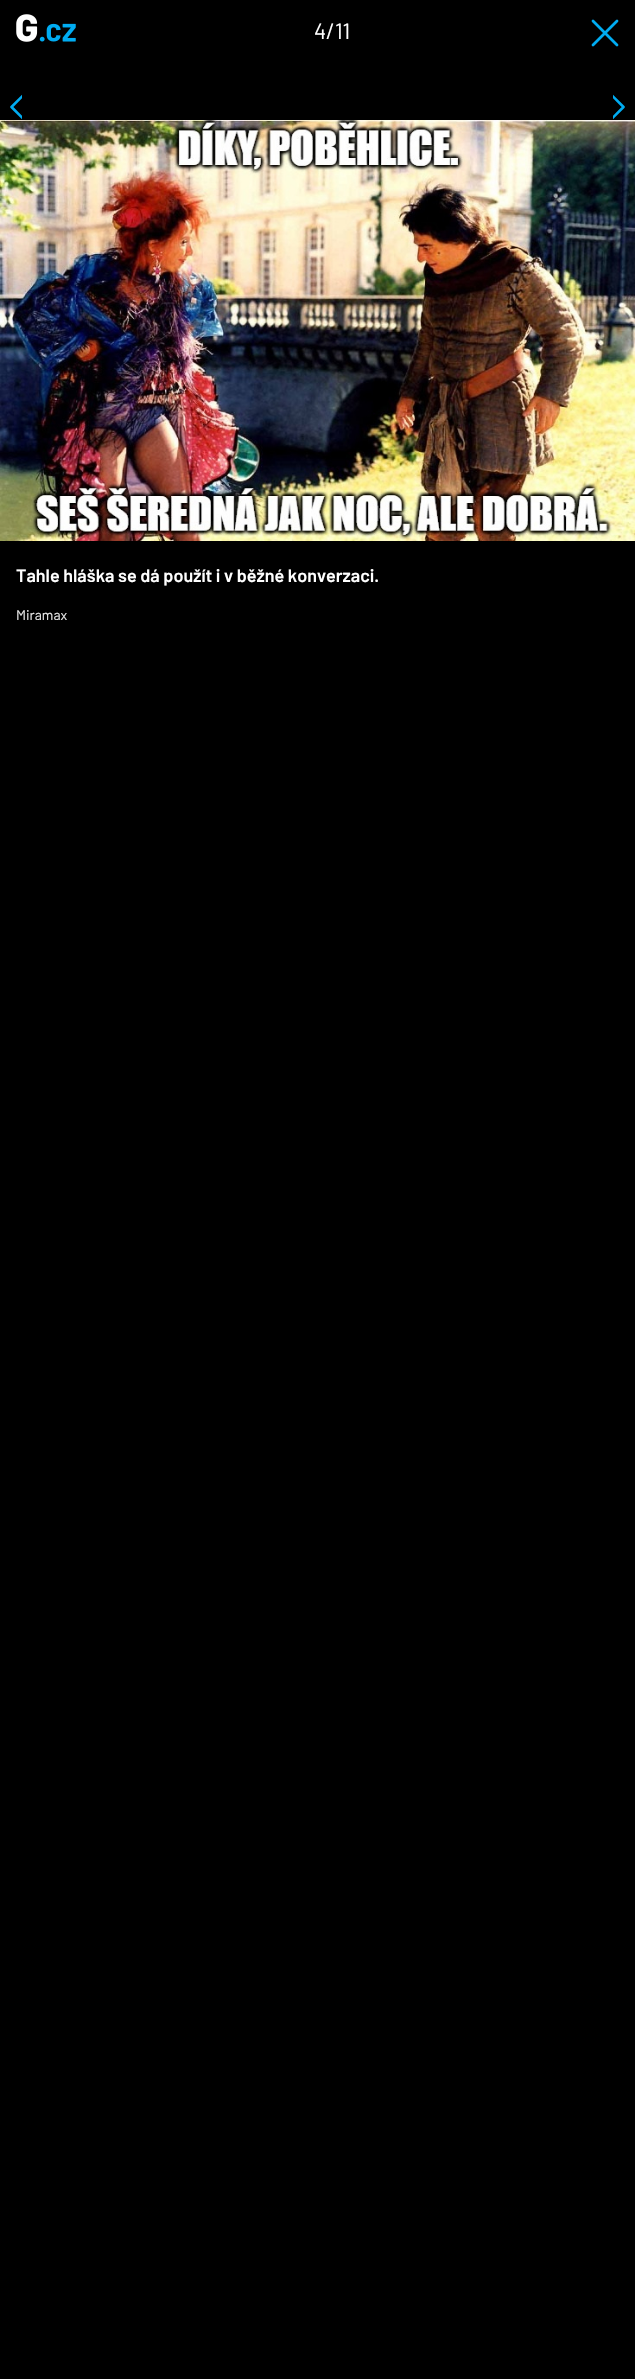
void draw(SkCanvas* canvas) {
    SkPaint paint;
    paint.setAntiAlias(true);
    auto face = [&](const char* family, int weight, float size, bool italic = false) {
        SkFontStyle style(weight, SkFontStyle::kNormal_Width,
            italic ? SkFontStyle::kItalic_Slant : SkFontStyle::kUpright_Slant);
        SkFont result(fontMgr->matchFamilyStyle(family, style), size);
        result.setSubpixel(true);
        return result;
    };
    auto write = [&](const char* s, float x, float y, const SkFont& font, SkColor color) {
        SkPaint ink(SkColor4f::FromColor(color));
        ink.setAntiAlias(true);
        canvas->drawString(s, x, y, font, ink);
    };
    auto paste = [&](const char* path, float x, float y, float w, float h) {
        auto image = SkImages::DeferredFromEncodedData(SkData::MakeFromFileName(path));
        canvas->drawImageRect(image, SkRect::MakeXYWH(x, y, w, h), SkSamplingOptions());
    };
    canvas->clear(SK_ColorBLACK);
    paste("pic1.png", 16, 14, 60, 28);
    auto kFont1 = face("Barlow", 400, 22);
    write("4/11", 314, 39, kFont1, SK_ColorWHITE);
    paint.setStyle(SkPaint::kStroke_Style);
    paint.setStrokeWidth(2.8f);
    paint.setStrokeCap(SkPaint::kRound_Cap);
    paint.setColor(SkColorSetRGB(0, 172, 242));
    canvas->drawPath(SkPathBuilder().moveTo(617, 45).lineTo(593, 21).moveTo(593, 45).lineTo(617, 21).detach(), paint);
    canvas->save();
    canvas->clipRect(SkRect::MakeXYWH(9, 94, 13, 26));
    paint.setStrokeWidth(2.6f);
    paint.setStrokeJoin(SkPaint::kRound_Join);
    canvas->drawPath(SkPathBuilder().moveTo(23, 118.5f).lineTo(11.5f, 107).lineTo(23, 95.5f).detach(), paint);
    canvas->restore();
    canvas->save();
    canvas->clipRect(SkRect::MakeXYWH(613, 94, 13, 26));
    canvas->drawPath(SkPathBuilder().moveTo(612, 95.5f).lineTo(623.5f, 107).lineTo(612, 118.5f).detach(), paint);
    canvas->restore();
    paste("pic2.png", 0, 120, 635, 421);
    auto kFont2 = face("Barlow", 600, 18);
    write("Tahle hláška se dá použít i v běžné konverzaci.", 16, 582, kFont2, SK_ColorWHITE);
    auto kFont3 = face("Barlow", 400, 14);
    write("Miramax", 16, 620, kFont3, SkColorSetRGB(230, 230, 230));
}
